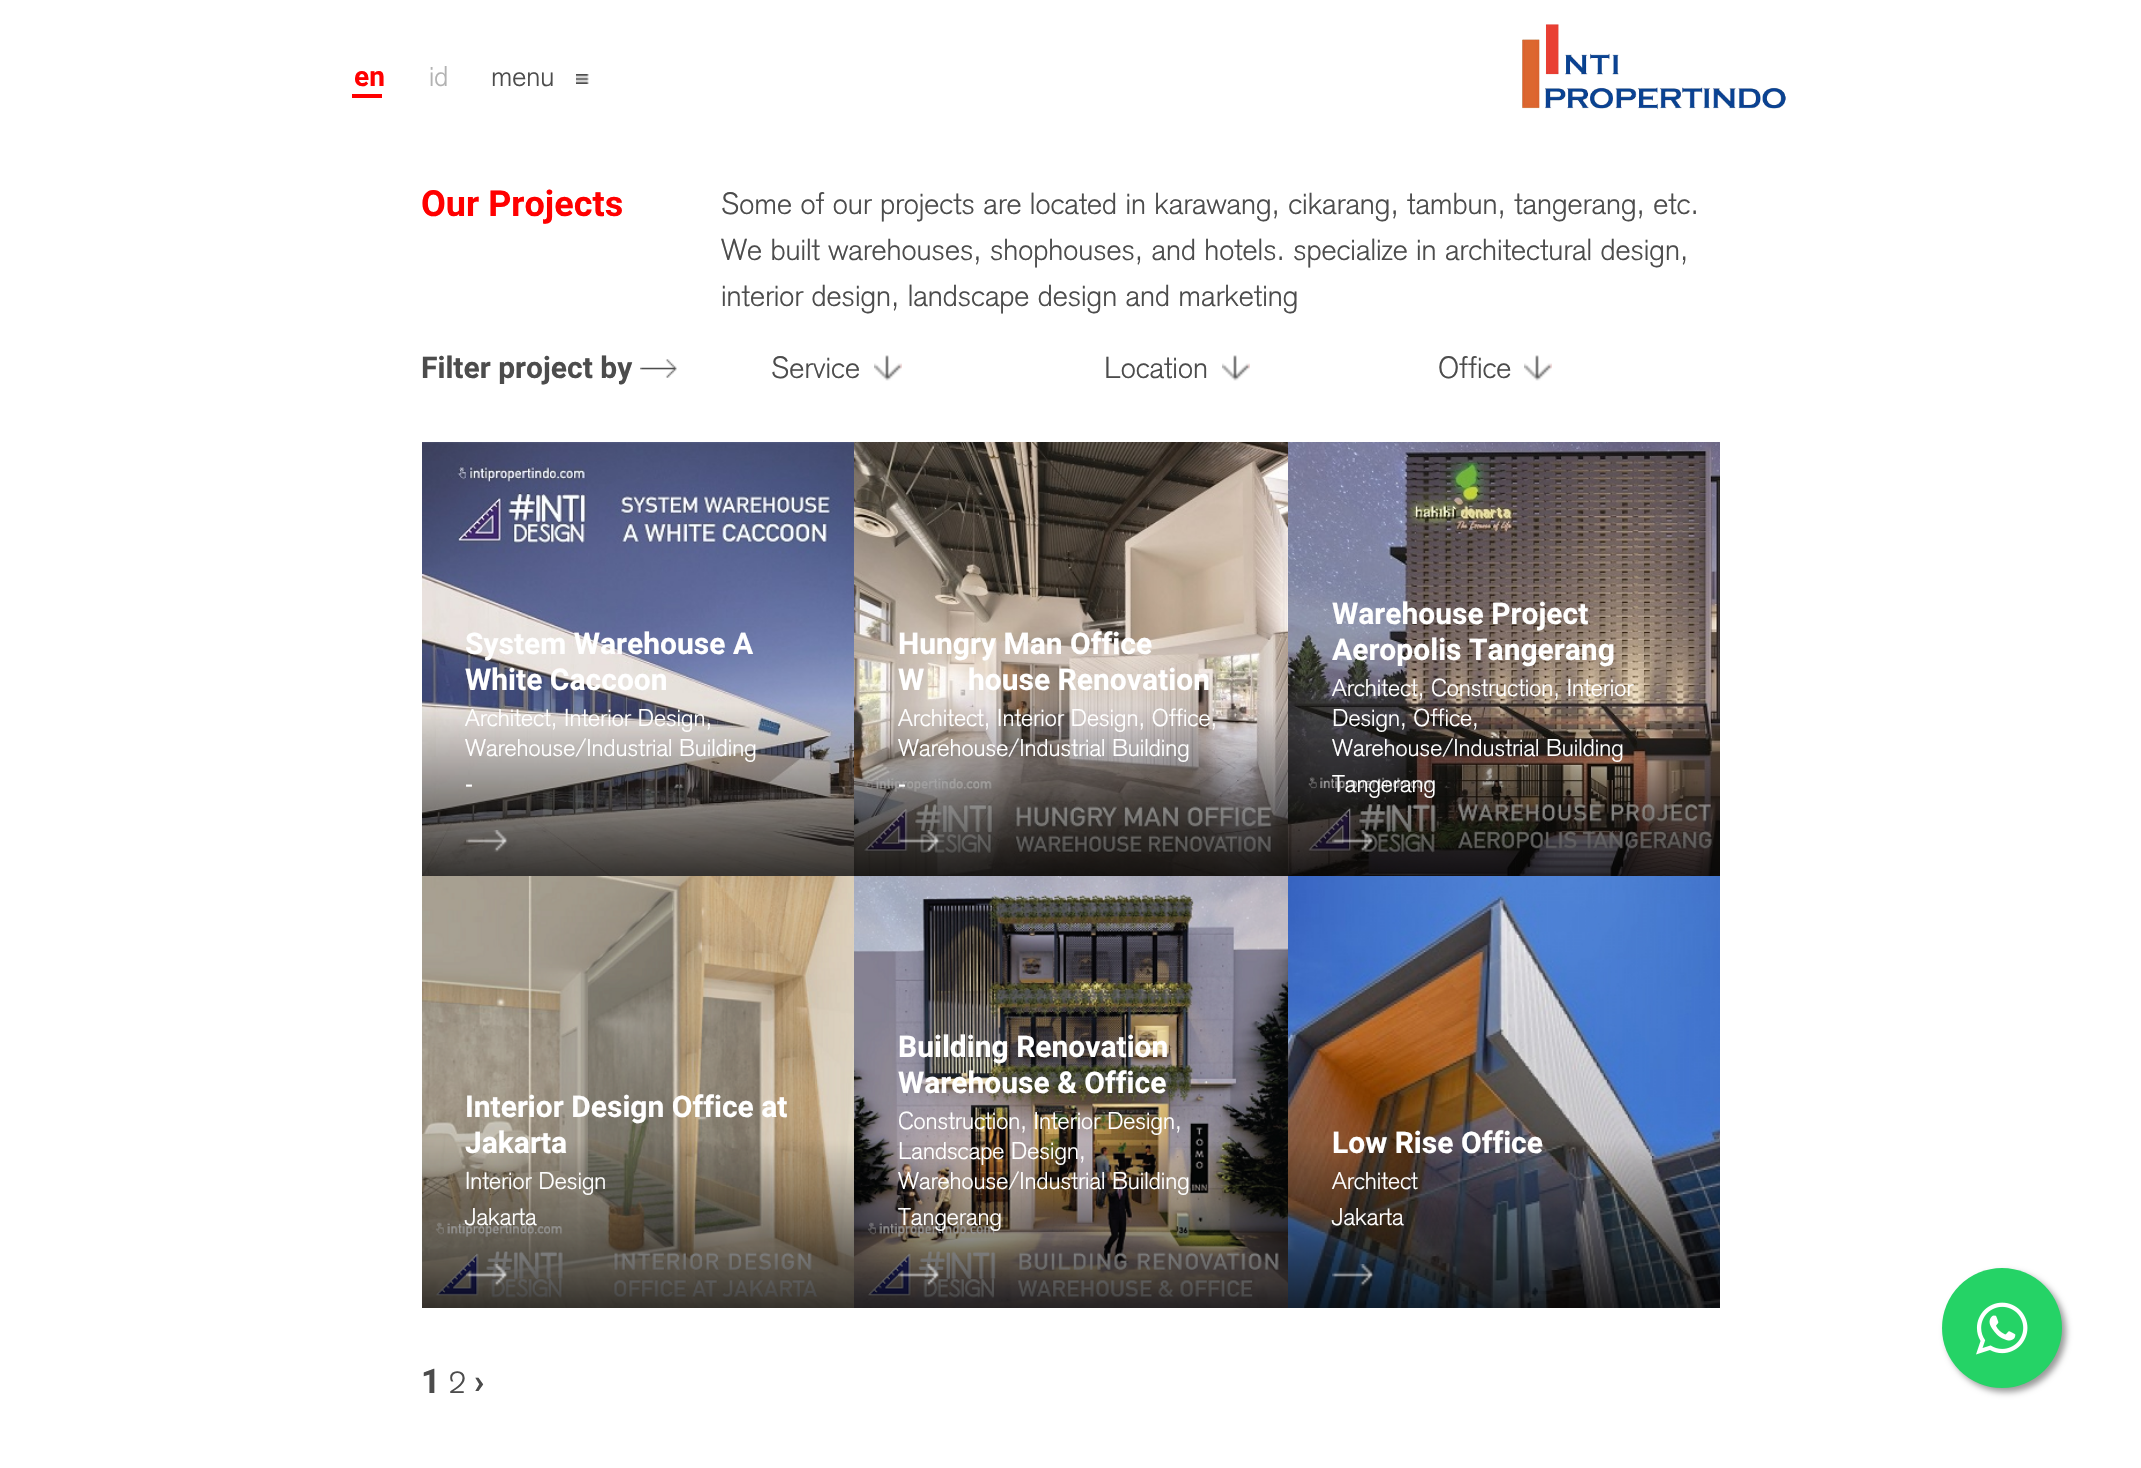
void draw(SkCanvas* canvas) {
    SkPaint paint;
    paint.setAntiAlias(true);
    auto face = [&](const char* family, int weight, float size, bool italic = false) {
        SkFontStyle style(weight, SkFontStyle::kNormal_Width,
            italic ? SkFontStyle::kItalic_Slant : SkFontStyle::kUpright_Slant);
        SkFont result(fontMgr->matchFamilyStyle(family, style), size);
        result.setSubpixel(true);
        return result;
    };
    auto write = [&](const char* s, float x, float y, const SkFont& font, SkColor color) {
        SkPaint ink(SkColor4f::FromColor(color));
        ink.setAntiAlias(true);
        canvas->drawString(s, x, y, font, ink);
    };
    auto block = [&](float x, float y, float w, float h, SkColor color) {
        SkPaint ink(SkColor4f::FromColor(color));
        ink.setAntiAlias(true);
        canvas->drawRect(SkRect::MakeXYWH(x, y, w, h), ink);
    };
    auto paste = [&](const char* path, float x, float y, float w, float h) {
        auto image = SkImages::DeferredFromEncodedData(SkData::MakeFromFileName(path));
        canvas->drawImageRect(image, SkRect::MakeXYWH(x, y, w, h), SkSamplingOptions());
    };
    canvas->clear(SK_ColorWHITE);
    auto kFont1 = face("Roboto", 700, 28);
    write("en", 354, 86, kFont1, SkColorSetRGB(255, 0, 0));
    block(352, 94, 30, 4, SkColorSetRGB(255, 0, 0));
    auto kFont2 = face("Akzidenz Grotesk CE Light", 300, 28);
    write("id", 429, 86, kFont2, SkColorSetRGB(178, 178, 178));
    write("menu", 491, 86, kFont2, SkColorSetRGB(76, 76, 76));
    paste("pic1.png", 576, 74, 13, 10);
    paste("pic2.png", 1522, 24, 264, 86);
    auto kFont3 = face("Roboto", 700, 36);
    write("Our Projects", 421, 216, kFont3, SkColorSetRGB(255, 0, 0));
    auto kFont4 = face("Akzidenz Grotesk CE Light", 300, 30);
    write("Some of our projects are located in karawang, cikarang, tambun, tangerang, etc.", 721, 214, kFont4, SkColorSetRGB(76, 76, 76));
    write("We built warehouses, shophouses, and hotels. specialize in architectural design,", 721, 260, kFont4, SkColorSetRGB(76, 76, 76));
    write("interior design, landscape design and marketing", 721, 306, kFont4, SkColorSetRGB(76, 76, 76));
    auto kFont5 = face("Roboto", 700, 30);
    write("Filter project by", 421, 378, kFont5, SkColorSetRGB(76, 76, 76));
    paste("pic3.png", 640, 359, 37, 19);
    write("Service", 771, 378, kFont4, SkColorSetRGB(76, 76, 76));
    paste("pic4.png", 874, 355, 28, 26);
    write("Location", 1104, 378, kFont4, SkColorSetRGB(76, 76, 76));
    paste("pic4.png", 1222, 355, 28, 26);
    write("Office", 1438, 378, kFont4, SkColorSetRGB(76, 76, 76));
    paste("pic4.png", 1524, 355, 28, 26);
    paste("pic5.png", 422, 442, 432, 434);
    write("System Warehouse A", 465, 654, kFont5, SK_ColorWHITE);
    write("White Caccoon", 465, 690, kFont5, SK_ColorWHITE);
    auto kFont6 = face("Akzidenz Grotesk CE Light", 300, 24);
    write("Architect, Interior Design,", 465, 726, kFont6, SK_ColorWHITE);
    write("Warehouse/Industrial Building", 465, 756, kFont6, SK_ColorWHITE);
    auto kFont7 = face("Liberation Sans", 400, 24);
    write("-", 465, 792, kFont7, SK_ColorWHITE);
    paste("pic6.png", 466, 830, 42, 22);
    paste("pic7.png", 854, 442, 434, 434);
    write("Hungry Man Office", 898, 654, kFont5, SK_ColorWHITE);
    write("W", 898, 690, kFont5, SK_ColorWHITE);
    write("house Renovation", 968, 690, kFont5, SK_ColorWHITE);
    write("Architect, Interior Design, Office,", 898, 726, kFont6, SK_ColorWHITE);
    write("Warehouse/Industrial Building", 898, 756, kFont6, SK_ColorWHITE);
    write("-", 898, 792, kFont7, SK_ColorWHITE);
    paste("pic8.png", 898, 830, 42, 22);
    paste("pic9.png", 1288, 442, 432, 434);
    write("Warehouse Project", 1332, 624, kFont5, SK_ColorWHITE);
    write("Aeropolis Tangerang", 1332, 660, kFont5, SK_ColorWHITE);
    write("Architect, Construction, Interior", 1332, 696, kFont6, SK_ColorWHITE);
    write("Design, Office,", 1332, 726, kFont6, SK_ColorWHITE);
    write("Warehouse/Industrial Building", 1332, 756, kFont6, SK_ColorWHITE);
    write("Tangerang", 1332, 792, kFont6, SK_ColorWHITE);
    paste("pic10.png", 1332, 830, 42, 22);
    paste("pic11.png", 422, 876, 432, 432);
    write("Interior Design Office at", 465, 1117, kFont5, SK_ColorWHITE);
    write("Jakarta", 465, 1153, kFont5, SK_ColorWHITE);
    write("Interior Design", 465, 1189, kFont6, SK_ColorWHITE);
    write("Jakarta", 465, 1225, kFont6, SK_ColorWHITE);
    paste("pic12.png", 466, 1264, 42, 22);
    paste("pic13.png", 854, 876, 434, 432);
    write("Building Renovation", 898, 1057, kFont5, SK_ColorWHITE);
    write("Warehouse & Office", 898, 1093, kFont5, SK_ColorWHITE);
    write("Construction, Interior Design,", 898, 1129, kFont6, SK_ColorWHITE);
    write("Landscape Design,", 898, 1159, kFont6, SK_ColorWHITE);
    write("Warehouse/Industrial Building", 898, 1189, kFont6, SK_ColorWHITE);
    write("Tangerang", 898, 1225, kFont6, SK_ColorWHITE);
    paste("pic14.png", 898, 1264, 42, 22);
    paste("pic15.png", 1288, 876, 432, 432);
    write("Low Rise Office", 1332, 1153, kFont5, SK_ColorWHITE);
    write("Architect", 1332, 1189, kFont6, SK_ColorWHITE);
    write("Jakarta", 1332, 1225, kFont6, SK_ColorWHITE);
    paste("pic16.png", 1332, 1264, 42, 22);
    auto kFont8 = face("Roboto", 700, 34);
    write("1", 421, 1393, kFont8, SkColorSetRGB(76, 76, 76));
    write("2", 449, 1393, kFont4, SkColorSetRGB(76, 76, 76));
    write("›", 474, 1393, kFont8, SkColorSetRGB(76, 76, 76));
    paint.setColor(SkColorSetRGB(153, 153, 153));
    paint.setMaskFilter(SkMaskFilter::MakeBlur(kNormal_SkBlurStyle, 3));
    canvas->drawRoundRect(SkRect::MakeXYWH(1946, 1272, 120, 120), 60, 60, paint);
    paint.setMaskFilter(nullptr);
    paint.setColor(SkColorSetRGB(37, 211, 102));
    canvas->drawCircle(2002, 1328, 60, paint);
    paste("pic17.png", 1976, 1302, 52, 53);
}
